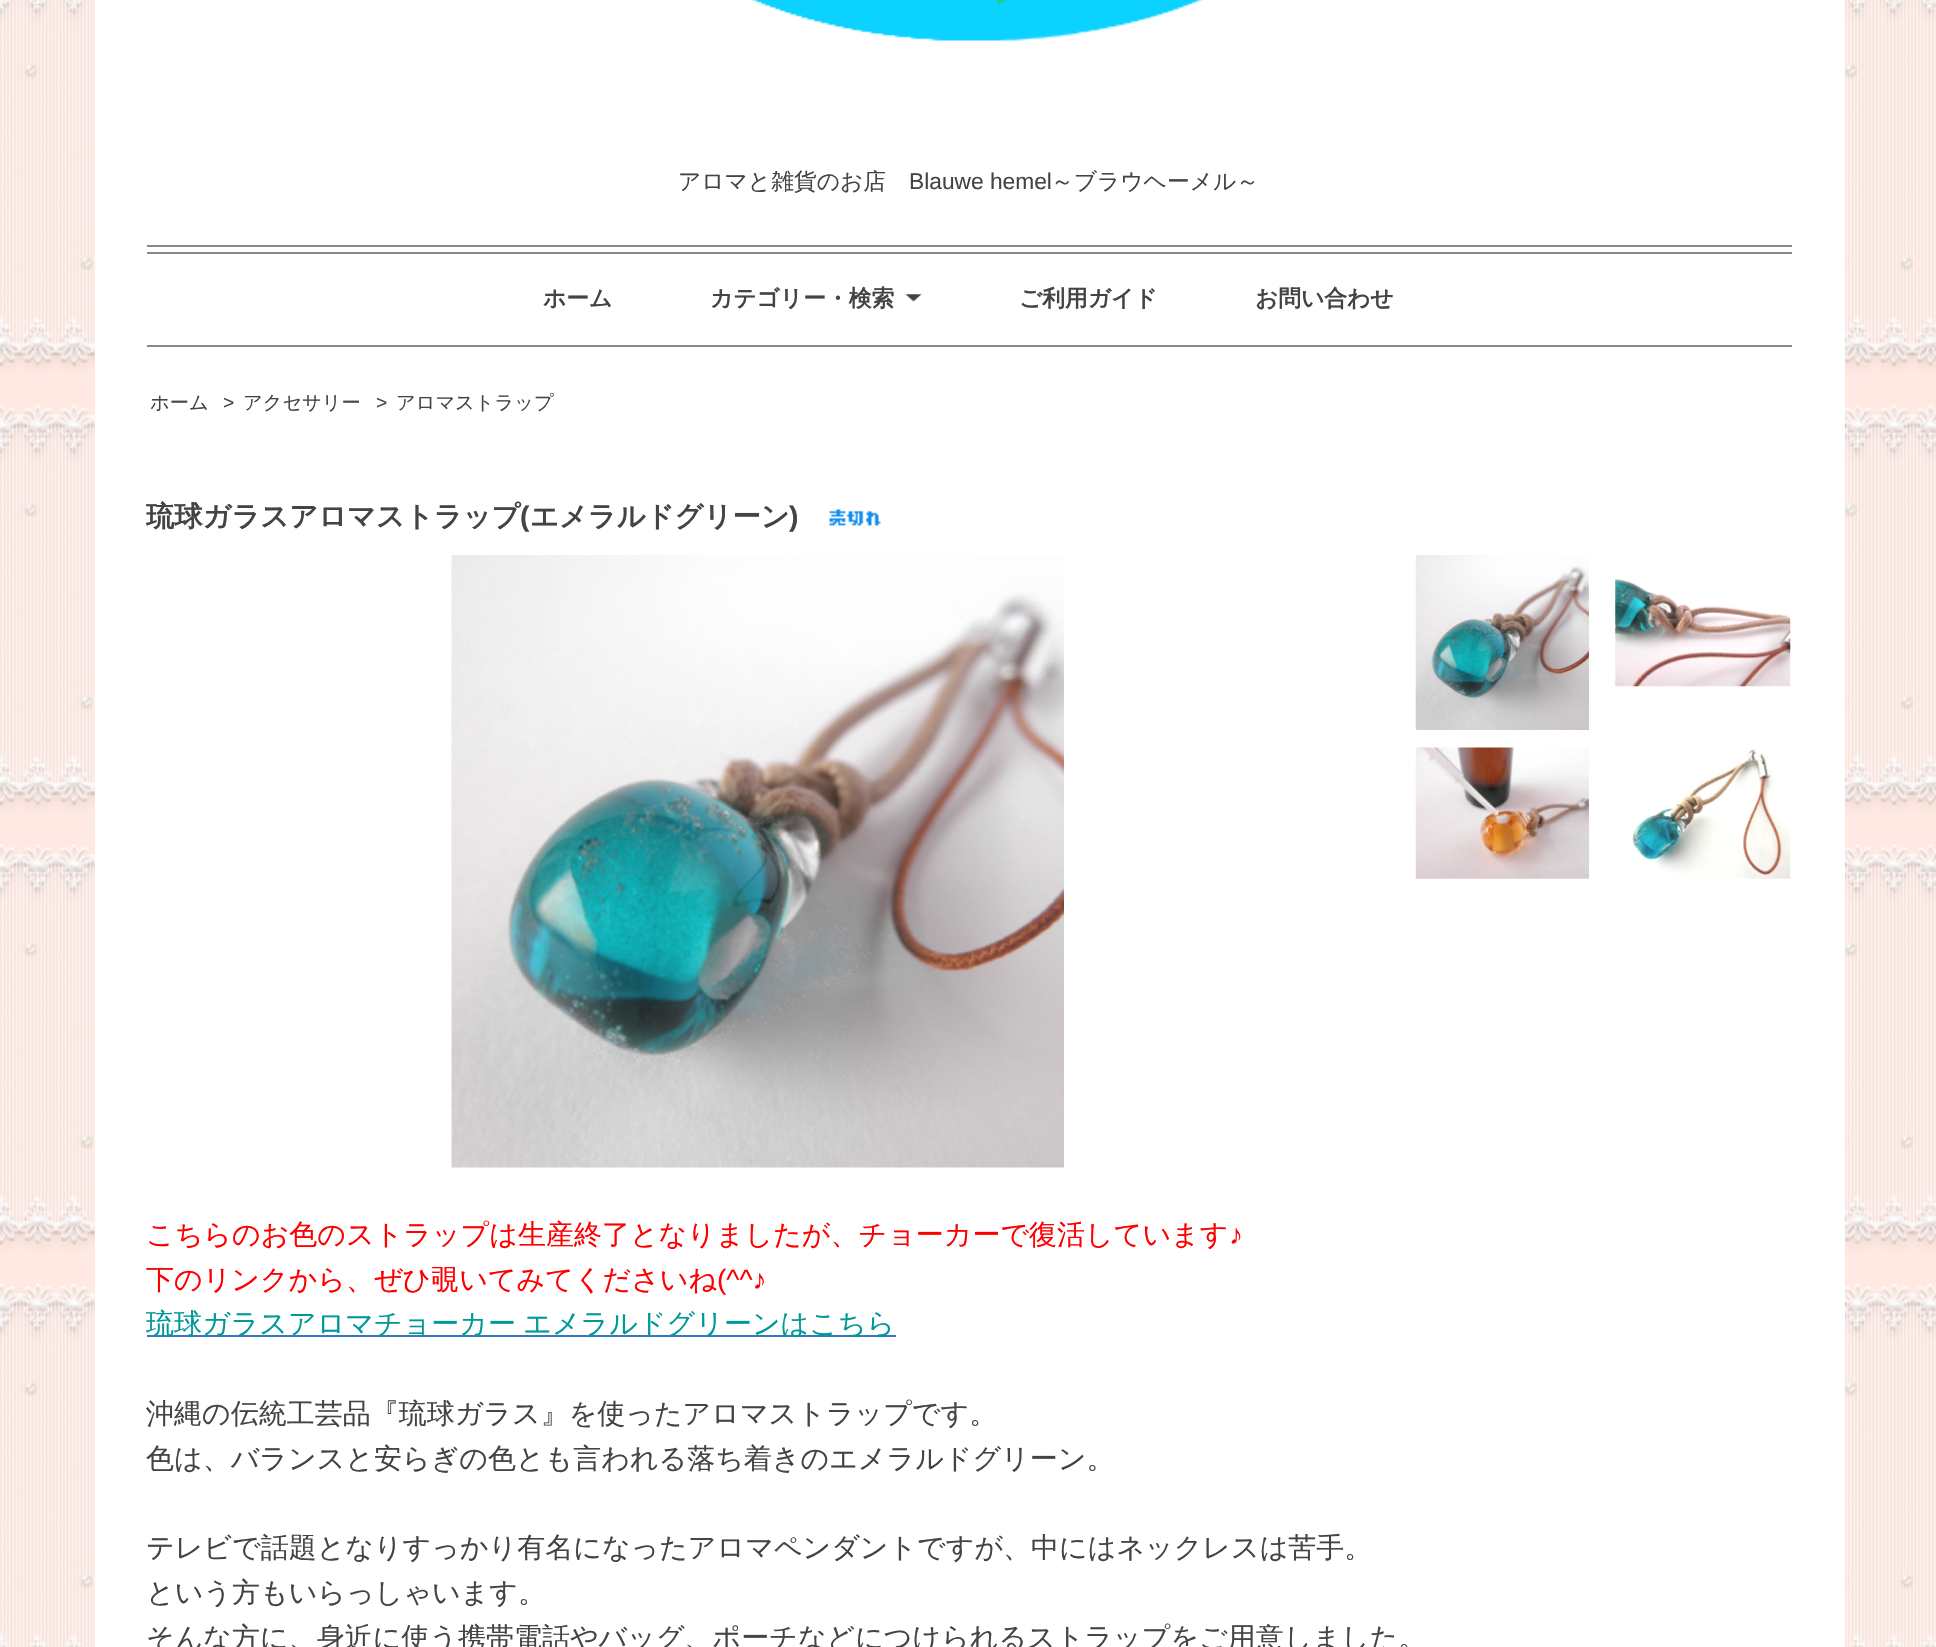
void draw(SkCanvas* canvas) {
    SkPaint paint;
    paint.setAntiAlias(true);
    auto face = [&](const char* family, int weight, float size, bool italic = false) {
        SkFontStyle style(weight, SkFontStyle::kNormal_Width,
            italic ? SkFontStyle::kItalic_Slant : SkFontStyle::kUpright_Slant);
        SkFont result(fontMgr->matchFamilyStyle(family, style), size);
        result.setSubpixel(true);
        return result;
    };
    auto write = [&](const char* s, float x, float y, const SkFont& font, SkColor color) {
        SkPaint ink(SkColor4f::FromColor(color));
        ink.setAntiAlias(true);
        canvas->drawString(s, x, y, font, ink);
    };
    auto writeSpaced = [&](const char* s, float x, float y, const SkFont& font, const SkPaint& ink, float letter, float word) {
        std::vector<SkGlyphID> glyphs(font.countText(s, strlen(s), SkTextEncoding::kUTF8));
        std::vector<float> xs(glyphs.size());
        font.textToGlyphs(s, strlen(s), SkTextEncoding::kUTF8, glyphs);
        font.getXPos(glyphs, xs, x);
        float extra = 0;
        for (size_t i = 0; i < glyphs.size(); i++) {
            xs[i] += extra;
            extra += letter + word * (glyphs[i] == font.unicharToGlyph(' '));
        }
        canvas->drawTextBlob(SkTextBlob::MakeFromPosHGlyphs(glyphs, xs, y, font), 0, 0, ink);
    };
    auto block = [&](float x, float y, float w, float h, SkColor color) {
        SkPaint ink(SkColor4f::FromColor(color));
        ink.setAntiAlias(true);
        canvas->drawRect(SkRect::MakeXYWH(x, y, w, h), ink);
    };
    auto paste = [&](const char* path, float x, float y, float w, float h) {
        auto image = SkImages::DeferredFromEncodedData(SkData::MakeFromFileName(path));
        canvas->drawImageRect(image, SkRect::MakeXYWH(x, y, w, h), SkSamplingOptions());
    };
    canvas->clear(SK_ColorWHITE);
    paste("pic1.png", 0, 0, 1936, 1647);
    block(95, 0, 1750, 1647, SK_ColorWHITE);
    block(147, 245, 1645, 2, SkColorSetRGB(136, 136, 136));
    paste("pic2.png", 752, 0, 452, 41);
    auto kFont1 = face("WenQuanYi Zen Hei", 500, 22.75f);
    write("アロマと雑貨のお店", 678, 189, kFont1, SkColorSetRGB(68, 68, 68));
    auto kFont2 = face("Liberation Sans", 400, 22.75f);
    write("Blauwe hemel", 909, 189, kFont2, SkColorSetRGB(68, 68, 68));
    write("～ブラウヘーメル～", 1051, 189, kFont1, SkColorSetRGB(68, 68, 68));
    block(147, 252, 1645, 2, SkColorSetRGB(136, 136, 136));
    block(147, 345, 1645, 2, SkColorSetRGB(136, 136, 136));
    auto kFont3 = face("WenQuanYi Zen Hei", 700, 22.75f);
    write("ホーム", 543, 306, kFont3, SkColorSetRGB(68, 68, 68));
    write("カテゴリー・検索", 710, 306, kFont3, SkColorSetRGB(68, 68, 68));
    paste("pic3.png", 905, 294, 17, 8);
    write("ご利用ガイド", 1019, 306, kFont3, SkColorSetRGB(68, 68, 68));
    write("お問い合わせ", 1255, 306, kFont3, SkColorSetRGB(68, 68, 68));
    auto kFont4 = face("WenQuanYi Zen Hei", 500, 19.25f);
    write("ホーム", 150, 409, kFont4, SkColorSetRGB(68, 68, 68));
    auto kFont5 = face("Liberation Sans", 400, 19.25f);
    write(">", 223, 409, kFont5, SkColorSetRGB(68, 68, 68));
    write("アクセサリー", 243, 409, kFont4, SkColorSetRGB(68, 68, 68));
    write(">", 376, 409, kFont5, SkColorSetRGB(68, 68, 68));
    write("アロマストラップ", 396, 409, kFont4, SkColorSetRGB(68, 68, 68));
    auto kFont6 = face("WenQuanYi Zen Hei", 700, 28.25f);
    write("琉球ガラスアロマストラップ", 146, 526, kFont6, SkColorSetRGB(68, 68, 68));
    auto kFont7 = face("Liberation Sans", 700, 28.25f);
    write("(", 520, 526, kFont7, SkColorSetRGB(68, 68, 68));
    write("エメラルドグリーン", 530, 526, kFont6, SkColorSetRGB(68, 68, 68));
    write(")", 789, 526, kFont7, SkColorSetRGB(68, 68, 68));
    paste("pic4.png", 829, 509, 52, 17);
    paste("pic5.png", 451, 555, 613, 613);
    paste("pic6.png", 1415, 555, 174, 175);
    paste("pic7.png", 1615, 578, 176, 109);
    paste("pic8.png", 1415, 747, 174, 132);
    paste("pic9.png", 1632, 749, 159, 130);
    auto kFont8 = face("WenQuanYi Zen Hei", 500, 28);
    write("こちらのお色のストラップは生産終了となりましたが、チョーカーで復活しています", 146, 1244, kFont8, SkColorSetRGB(255, 0, 0));
    auto kFont9 = face("Liberation Sans", 400, 28);
    write("♪", 1229, 1244, kFont9, SkColorSetRGB(255, 0, 0));
    write("下のリンクから、ぜひ覗いてみてくださいね", 146, 1289, kFont8, SkColorSetRGB(255, 0, 0));
    write("(^^♪", 717, 1289, kFont9, SkColorSetRGB(255, 0, 0));
    block(147, 1335, 749, 2, SkColorSetRGB(53, 121, 191));
    paint.setColor(SkColorSetRGB(0, 153, 153));
    writeSpaced("琉球ガラスアロマチョーカー エメラルドグリーンはこちら", 146, 1333, kFont8, paint, 0, -1);
    write("沖縄の伝統工芸品『琉球ガラス』を使ったアロマストラップです。", 146, 1423, kFont8, SkColorSetRGB(68, 68, 68));
    write("色は、バランスと安らぎの色とも言われる落ち着きのエメラルドグリーン。", 146, 1468, kFont8, SkColorSetRGB(68, 68, 68));
    write("テレビで話題となりすっかり有名になったアロマペンダントですが、中にはネックレスは苦手。", 146, 1557, kFont8, SkColorSetRGB(68, 68, 68));
    write("という方もいらっしゃいます。", 146, 1602, kFont8, SkColorSetRGB(68, 68, 68));
    write("そんな方に、身近に使う携帯電話やバッグ、ポーチなどにつけられるストラップをご用意しました。", 146, 1647, kFont8, SkColorSetRGB(68, 68, 68));
}
